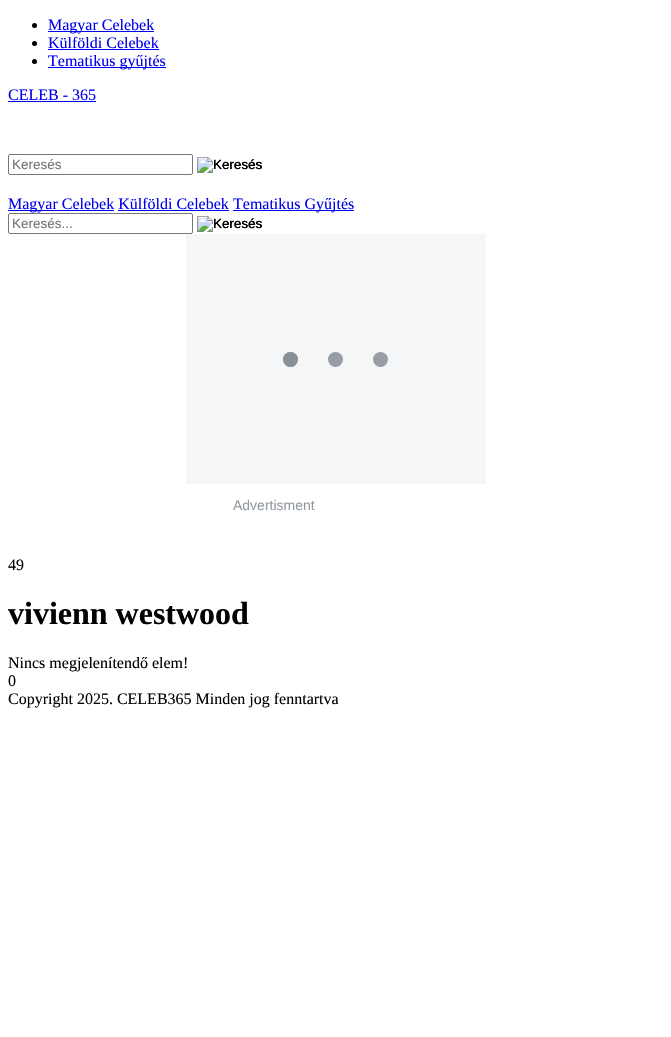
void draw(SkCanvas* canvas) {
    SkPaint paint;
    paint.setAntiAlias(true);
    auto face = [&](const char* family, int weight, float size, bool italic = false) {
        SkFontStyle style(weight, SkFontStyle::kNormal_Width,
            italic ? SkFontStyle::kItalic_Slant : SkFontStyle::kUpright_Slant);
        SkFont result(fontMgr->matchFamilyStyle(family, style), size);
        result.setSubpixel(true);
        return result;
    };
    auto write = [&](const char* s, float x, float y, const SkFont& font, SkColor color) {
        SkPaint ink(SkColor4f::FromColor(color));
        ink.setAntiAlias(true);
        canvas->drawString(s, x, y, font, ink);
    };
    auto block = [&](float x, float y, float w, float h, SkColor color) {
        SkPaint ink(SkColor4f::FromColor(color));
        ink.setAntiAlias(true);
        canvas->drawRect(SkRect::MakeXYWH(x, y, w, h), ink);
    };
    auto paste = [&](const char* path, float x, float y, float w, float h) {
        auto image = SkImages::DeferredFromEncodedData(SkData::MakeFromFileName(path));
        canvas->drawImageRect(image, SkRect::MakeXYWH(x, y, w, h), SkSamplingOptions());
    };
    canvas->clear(SK_ColorWHITE);
    paint.setColor(SK_ColorBLACK);
    canvas->drawCircle(34.5f, 25.5f, 2.5f, paint);
    block(48, 31, 106, 1, SkColorSetRGB(0, 0, 238));
    auto kFont1 = face("Liberation Serif", 400, 16);
    write("Magyar Celebek", 48, 30, kFont1, SkColorSetRGB(0, 0, 238));
    canvas->drawCircle(34.5f, 43.5f, 2.5f, paint);
    write("Külföldi Celebek", 48, 48, kFont1, SkColorSetRGB(0, 0, 238));
    block(48, 49, 111, 1, SkColorSetRGB(0, 0, 238));
    canvas->drawCircle(34.5f, 61.5f, 2.5f, paint);
    block(48, 67, 118, 1, SkColorSetRGB(0, 0, 238));
    write("Tematikus gyűjtés", 48, 66, kFont1, SkColorSetRGB(0, 0, 238));
    write("CELEB - 365", 8, 100, kFont1, SkColorSetRGB(0, 0, 238));
    block(8, 101, 88, 1, SkColorSetRGB(0, 0, 238));
    paint.setStyle(SkPaint::kStroke_Style);
    paint.setStrokeWidth(1);
    paint.setColor(SkColorSetRGB(118, 118, 118));
    canvas->drawRoundRect(SkRect::MakeXYWH(8.5f, 154.5f, 184, 20), 1.5f, 1.5f, paint);
    auto kFont2 = face("Liberation Sans", 400, 13.5f);
    write("Keresés", 12, 169, kFont2, SkColorSetRGB(117, 117, 117));
    paste("pic1.png", 197, 157, 65, 16);
    write("Keresés", 213, 169, kFont2, SK_ColorBLACK);
    block(8, 210, 106, 1, SkColorSetRGB(0, 0, 238));
    write("Magyar Celebek Külföldi Celebek", 8, 209, kFont1, SkColorSetRGB(0, 0, 238));
    block(233, 210, 121, 1, SkColorSetRGB(0, 0, 238));
    write("Tematikus Gyűjtés", 233, 209, kFont1, SkColorSetRGB(0, 0, 238));
    block(118, 210, 111, 1, SkColorSetRGB(0, 0, 238));
    canvas->drawRoundRect(SkRect::MakeXYWH(8.5f, 213.5f, 184, 20), 1.5f, 1.5f, paint);
    write("Keresés...", 12, 228, kFont2, SkColorSetRGB(117, 117, 117));
    paste("pic1.png", 197, 216, 65, 16);
    write("Keresés", 213, 228, kFont2, SK_ColorBLACK);
    block(186, 234, 300, 250, SkColorSetRGB(245, 246, 248));
    paint.setStyle(SkPaint::kFill_Style);
    paint.setColor(SkColorSetRGB(150, 157, 164));
    canvas->drawCircle(290.5f, 359.5f, 7.5f, paint);
    paint.setColor(SkColorSetARGB(219, 134, 142, 150));
    canvas->drawCircle(290.5f, 359.5f, 7.5f, paint);
    paint.setColor(SkColorSetRGB(150, 157, 164));
    canvas->drawCircle(335.5f, 359.5f, 7.5f, paint);
    canvas->drawCircle(380.5f, 359.5f, 7.5f, paint);
    auto kFont3 = face("Liberation Sans", 400, 14);
    write("Advertisment", 233, 510, kFont3, SkColorSetRGB(146, 153, 161));
    write("49", 8, 570, kFont1, SK_ColorBLACK);
    auto kFont4 = face("Liberation Serif", 700, 32);
    write("vivienn westwood", 8, 624, kFont4, SK_ColorBLACK);
    write("Nincs megjelenítendő elem!", 8, 668, kFont1, SK_ColorBLACK);
    write("0", 8, 686, kFont1, SK_ColorBLACK);
    write("Copyright 2025. CELEB365 Minden jog fenntartva", 8, 704, kFont1, SK_ColorBLACK);
}
